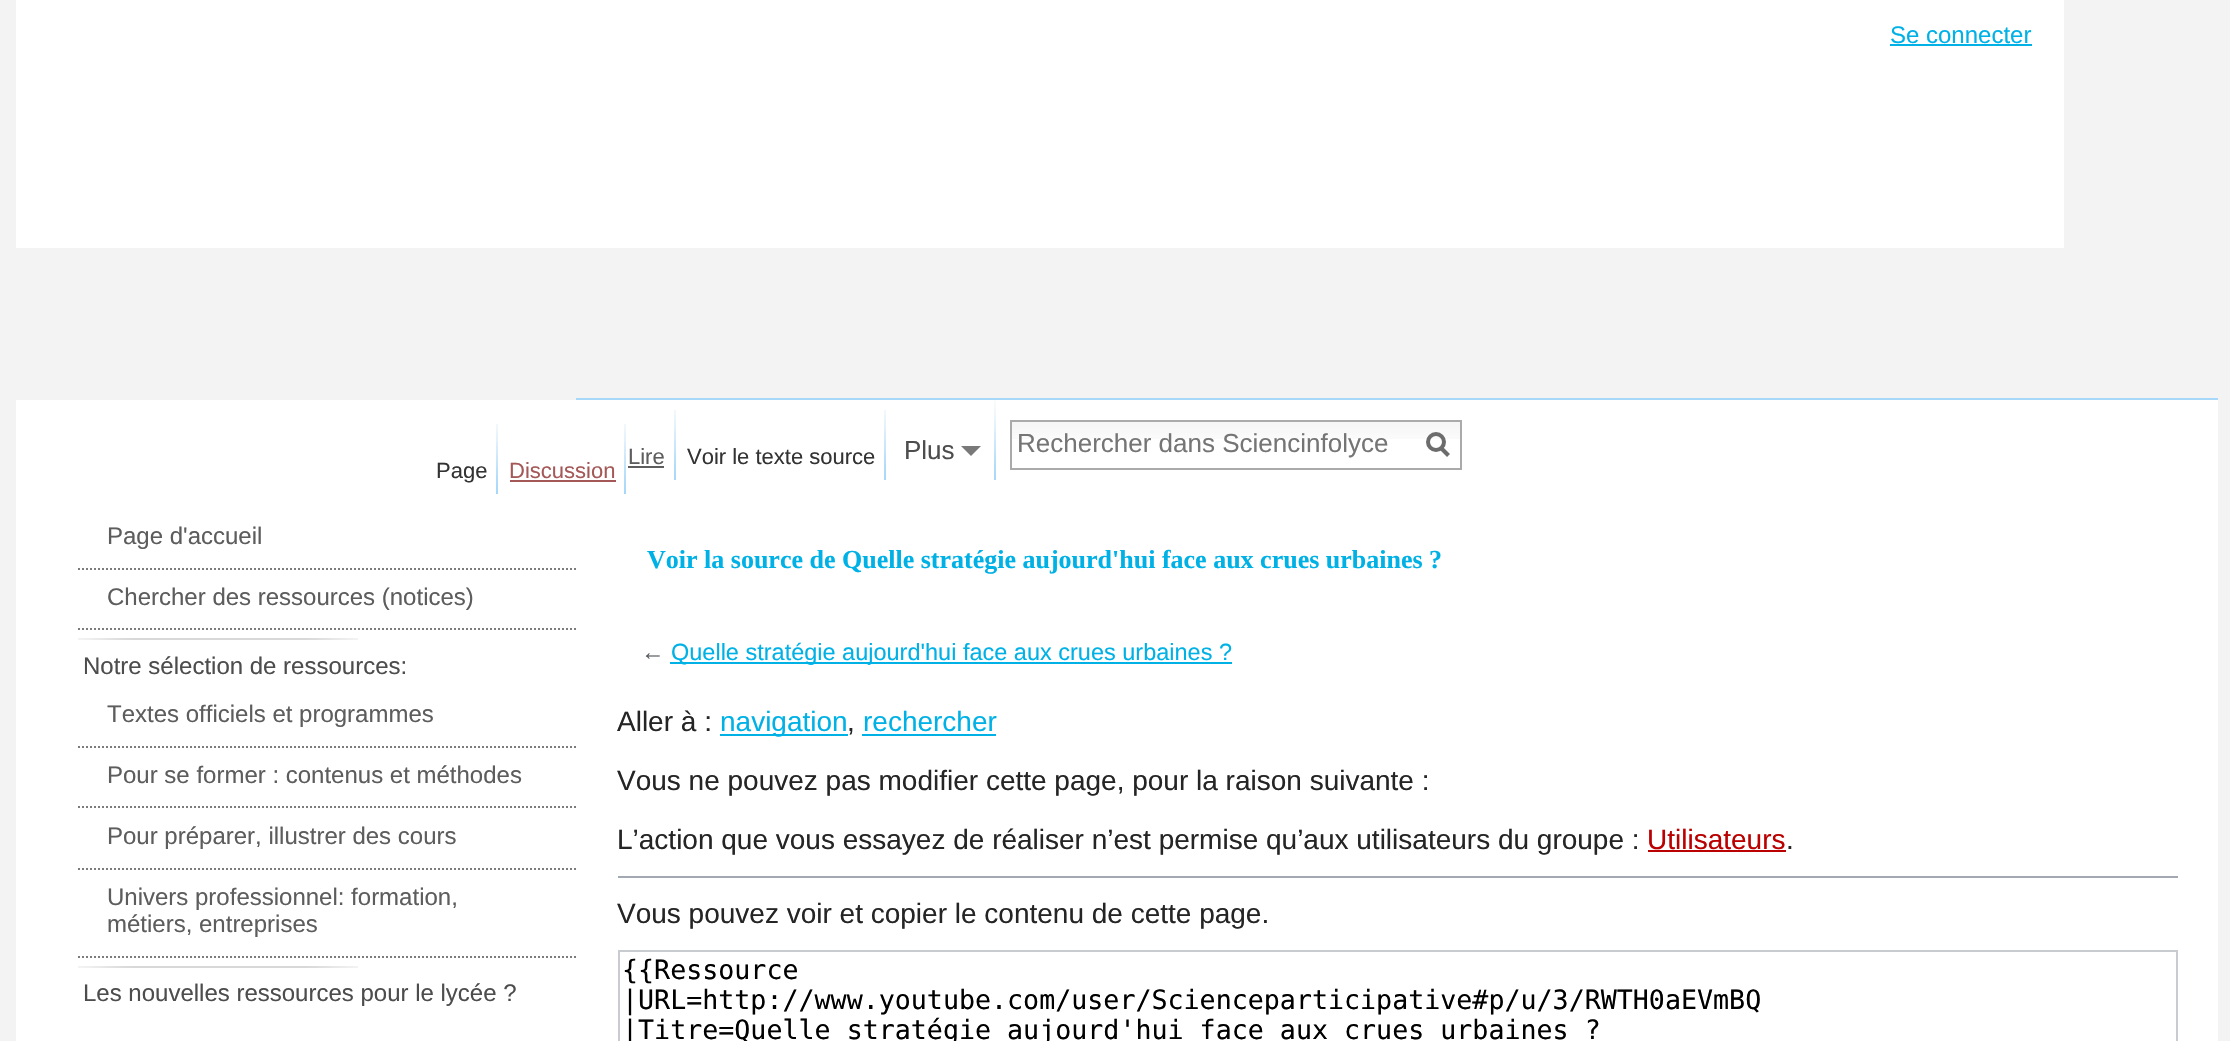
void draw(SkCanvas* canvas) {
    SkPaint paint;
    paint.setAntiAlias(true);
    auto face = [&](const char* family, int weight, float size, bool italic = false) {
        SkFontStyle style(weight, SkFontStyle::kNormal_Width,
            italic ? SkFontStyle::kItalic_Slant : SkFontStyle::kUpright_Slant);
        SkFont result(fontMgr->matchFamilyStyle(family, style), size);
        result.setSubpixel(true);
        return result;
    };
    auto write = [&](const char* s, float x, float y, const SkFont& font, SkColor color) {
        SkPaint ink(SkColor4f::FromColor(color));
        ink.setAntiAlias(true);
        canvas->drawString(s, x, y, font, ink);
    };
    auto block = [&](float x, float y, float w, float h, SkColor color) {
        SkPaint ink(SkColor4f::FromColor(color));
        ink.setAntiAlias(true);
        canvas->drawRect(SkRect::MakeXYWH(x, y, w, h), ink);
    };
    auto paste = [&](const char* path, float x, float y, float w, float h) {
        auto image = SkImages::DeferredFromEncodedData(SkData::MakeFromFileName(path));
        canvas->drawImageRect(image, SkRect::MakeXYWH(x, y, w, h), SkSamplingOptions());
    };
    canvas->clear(SkColorSetRGB(243, 243, 243));
    block(16, 0, 2048, 248, SK_ColorWHITE);
    auto kFont1 = face("Liberation Sans", 400, 24);
    write("Se connecter", 1890, 43, kFont1, SkColorSetRGB(0, 177, 230));
    block(1890, 44, 142, 2, SkColorSetRGB(0, 177, 230));
    block(16, 400, 2202, 641, SK_ColorWHITE);
    paste("pic1.png", 674, 410, 2, 70);
    auto kFont2 = face("Liberation Sans", 400, 22);
    write("Lire", 628, 464, kFont2, SkColorSetRGB(93, 93, 93));
    block(628, 466, 36, 2, SkColorSetRGB(93, 93, 93));
    paste("pic1.png", 884, 410, 2, 70);
    write("Voir le texte source", 687, 464, kFont2, SkColorSetRGB(51, 51, 51));
    paste("pic2.png", 994, 400, 2, 80);
    auto kFont3 = face("Liberation Sans", 400, 26);
    write("Plus", 904, 459, kFont3, SkColorSetRGB(77, 77, 77));
    paint.setColor(SkColorSetRGB(121, 121, 121));
    canvas->drawPath(SkPathBuilder().moveTo(981, 446).lineTo(971, 456).lineTo(961, 446).close().detach(), paint);
    paste("pic3.png", 1012, 422, 448, 17);
    paint.setStyle(SkPaint::kStroke_Style);
    paint.setStrokeWidth(2);
    paint.setColor(SkColorSetRGB(170, 170, 170));
    canvas->drawRect(SkRect::MakeXYWH(1011, 421, 450, 48), paint);
    write("Rechercher dans Sciencinfolyce", 1017, 452, kFont3, SkColorSetRGB(117, 117, 117));
    paint.setStrokeWidth(4);
    paint.setColor(SkColorSetRGB(108, 108, 108));
    canvas->drawPath(SkPathBuilder().moveTo(1448.5f, 455.5f).lineTo(1440.5f, 447.5f).detach(), paint);
    canvas->drawCircle(1436, 442, 8, paint);
    paste("pic1.png", 496, 424, 2, 70);
    write("Page", 436, 478, kFont2, SkColorSetRGB(51, 51, 51));
    paste("pic1.png", 624, 424, 2, 70);
    write("Discussion", 509, 478, kFont2, SkColorSetRGB(165, 88, 88));
    block(510, 480, 106, 2, SkColorSetRGB(165, 88, 88));
    paint.setStrokeWidth(2);
    paint.setColor(SkColorSetRGB(124, 124, 124));
    paint.setPathEffect(SkDashPathEffect::Make({{2, 2}}, 0));
    canvas->drawPath(SkPathBuilder().moveTo(78, 569).lineTo(578, 569).detach(), paint);
    paint.setPathEffect(nullptr);
    write("Page d'accueil", 107, 544, kFont1, SkColorSetRGB(93, 93, 93));
    paint.setPathEffect(SkDashPathEffect::Make({{2, 2}}, 0));
    canvas->drawPath(SkPathBuilder().moveTo(78, 629).lineTo(578, 629).detach(), paint);
    paint.setPathEffect(nullptr);
    write("Chercher des ressources (notices)", 107, 605, kFont1, SkColorSetRGB(93, 93, 93));
    paste("pic4.png", 78, 638, 280, 2);
    write("Notre sélection de ressources:", 83, 674, kFont1, SkColorSetRGB(77, 77, 77));
    paint.setPathEffect(SkDashPathEffect::Make({{2, 2}}, 0));
    canvas->drawPath(SkPathBuilder().moveTo(78, 747).lineTo(578, 747).detach(), paint);
    paint.setPathEffect(nullptr);
    write("Textes officiels et programmes", 107, 722, kFont1, SkColorSetRGB(93, 93, 93));
    paint.setPathEffect(SkDashPathEffect::Make({{2, 2}}, 0));
    canvas->drawPath(SkPathBuilder().moveTo(78, 807).lineTo(578, 807).detach(), paint);
    paint.setPathEffect(nullptr);
    write("Pour se former : contenus et méthodes", 107, 783, kFont1, SkColorSetRGB(93, 93, 93));
    paint.setPathEffect(SkDashPathEffect::Make({{2, 2}}, 0));
    canvas->drawPath(SkPathBuilder().moveTo(78, 869).lineTo(578, 869).detach(), paint);
    paint.setPathEffect(nullptr);
    write("Pour préparer, illustrer des cours", 107, 844, kFont1, SkColorSetRGB(93, 93, 93));
    paint.setPathEffect(SkDashPathEffect::Make({{2, 2}}, 0));
    canvas->drawPath(SkPathBuilder().moveTo(78, 957).lineTo(578, 957).detach(), paint);
    paint.setPathEffect(nullptr);
    write("Univers professionnel: formation,", 107, 905, kFont1, SkColorSetRGB(93, 93, 93));
    write("métiers, entreprises", 107, 932, kFont1, SkColorSetRGB(93, 93, 93));
    paste("pic4.png", 78, 966, 280, 2);
    write("Les nouvelles ressources pour le lycée ?", 83, 1001, kFont1, SkColorSetRGB(77, 77, 77));
    block(576, 398, 1642, 2, SkColorSetRGB(167, 215, 249));
    auto kFont4 = face("Liberation Serif", 700, 26);
    write("Voir la source de Quelle stratégie aujourd'hui face aux crues urbaines ?", 647, 568, kFont4, SkColorSetRGB(0, 177, 230));
    auto kFont5 = face("Liberation Sans", 400, 23.5f);
    write("←", 641, 660, kFont5, SkColorSetRGB(84, 89, 93));
    block(670, 662, 562, 2, SkColorSetRGB(0, 177, 230));
    write("Quelle stratégie aujourd'hui face aux crues urbaines ?", 671, 660, kFont5, SkColorSetRGB(0, 177, 230));
    auto kFont6 = face("Liberation Sans", 400, 28);
    write("Aller à :", 617, 731, kFont6, SkColorSetRGB(37, 37, 37));
    block(720, 734, 128, 2, SkColorSetRGB(0, 177, 230));
    write("navigation", 720, 731, kFont6, SkColorSetRGB(0, 177, 230));
    write(",", 847, 731, kFont6, SkColorSetRGB(37, 37, 37));
    write("rechercher", 863, 731, kFont6, SkColorSetRGB(0, 177, 230));
    block(862, 734, 134, 2, SkColorSetRGB(0, 177, 230));
    write("Vous ne pouvez pas modifier cette page, pour la raison suivante :", 617, 790, kFont6, SkColorSetRGB(37, 37, 37));
    write("L’action que vous essayez de réaliser n’est permise qu’aux utilisateurs du groupe :", 617, 849, kFont6, SkColorSetRGB(37, 37, 37));
    write("Utilisateurs", 1647, 849, kFont6, SkColorSetRGB(186, 0, 0));
    block(1648, 850, 138, 2, SkColorSetRGB(186, 0, 0));
    write(".", 1786, 849, kFont6, SkColorSetRGB(37, 37, 37));
    block(618, 876, 1560, 2, SkColorSetRGB(162, 169, 177));
    write("Vous pouvez voir et copier le contenu de cette page.", 617, 923, kFont6, SkColorSetRGB(37, 37, 37));
    paint.setColor(SkColorSetRGB(200, 204, 209));
    canvas->drawRect(SkRect::MakeXYWH(619, 951, 1558, 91), paint);
    auto kFont7 = face("DejaVu Sans Mono", 400, 26.65f);
    write("{{Ressource", 622, 979, kFont7, SK_ColorBLACK);
    write("|URL=http://www.youtube.com/user/Scienceparticipative#p/u/3/RWTH0aEVmBQ", 622, 1009, kFont7, SK_ColorBLACK);
    write("|Titre=Quelle stratégie aujourd'hui face aux crues urbaines ?", 622, 1039, kFont7, SK_ColorBLACK);
}
